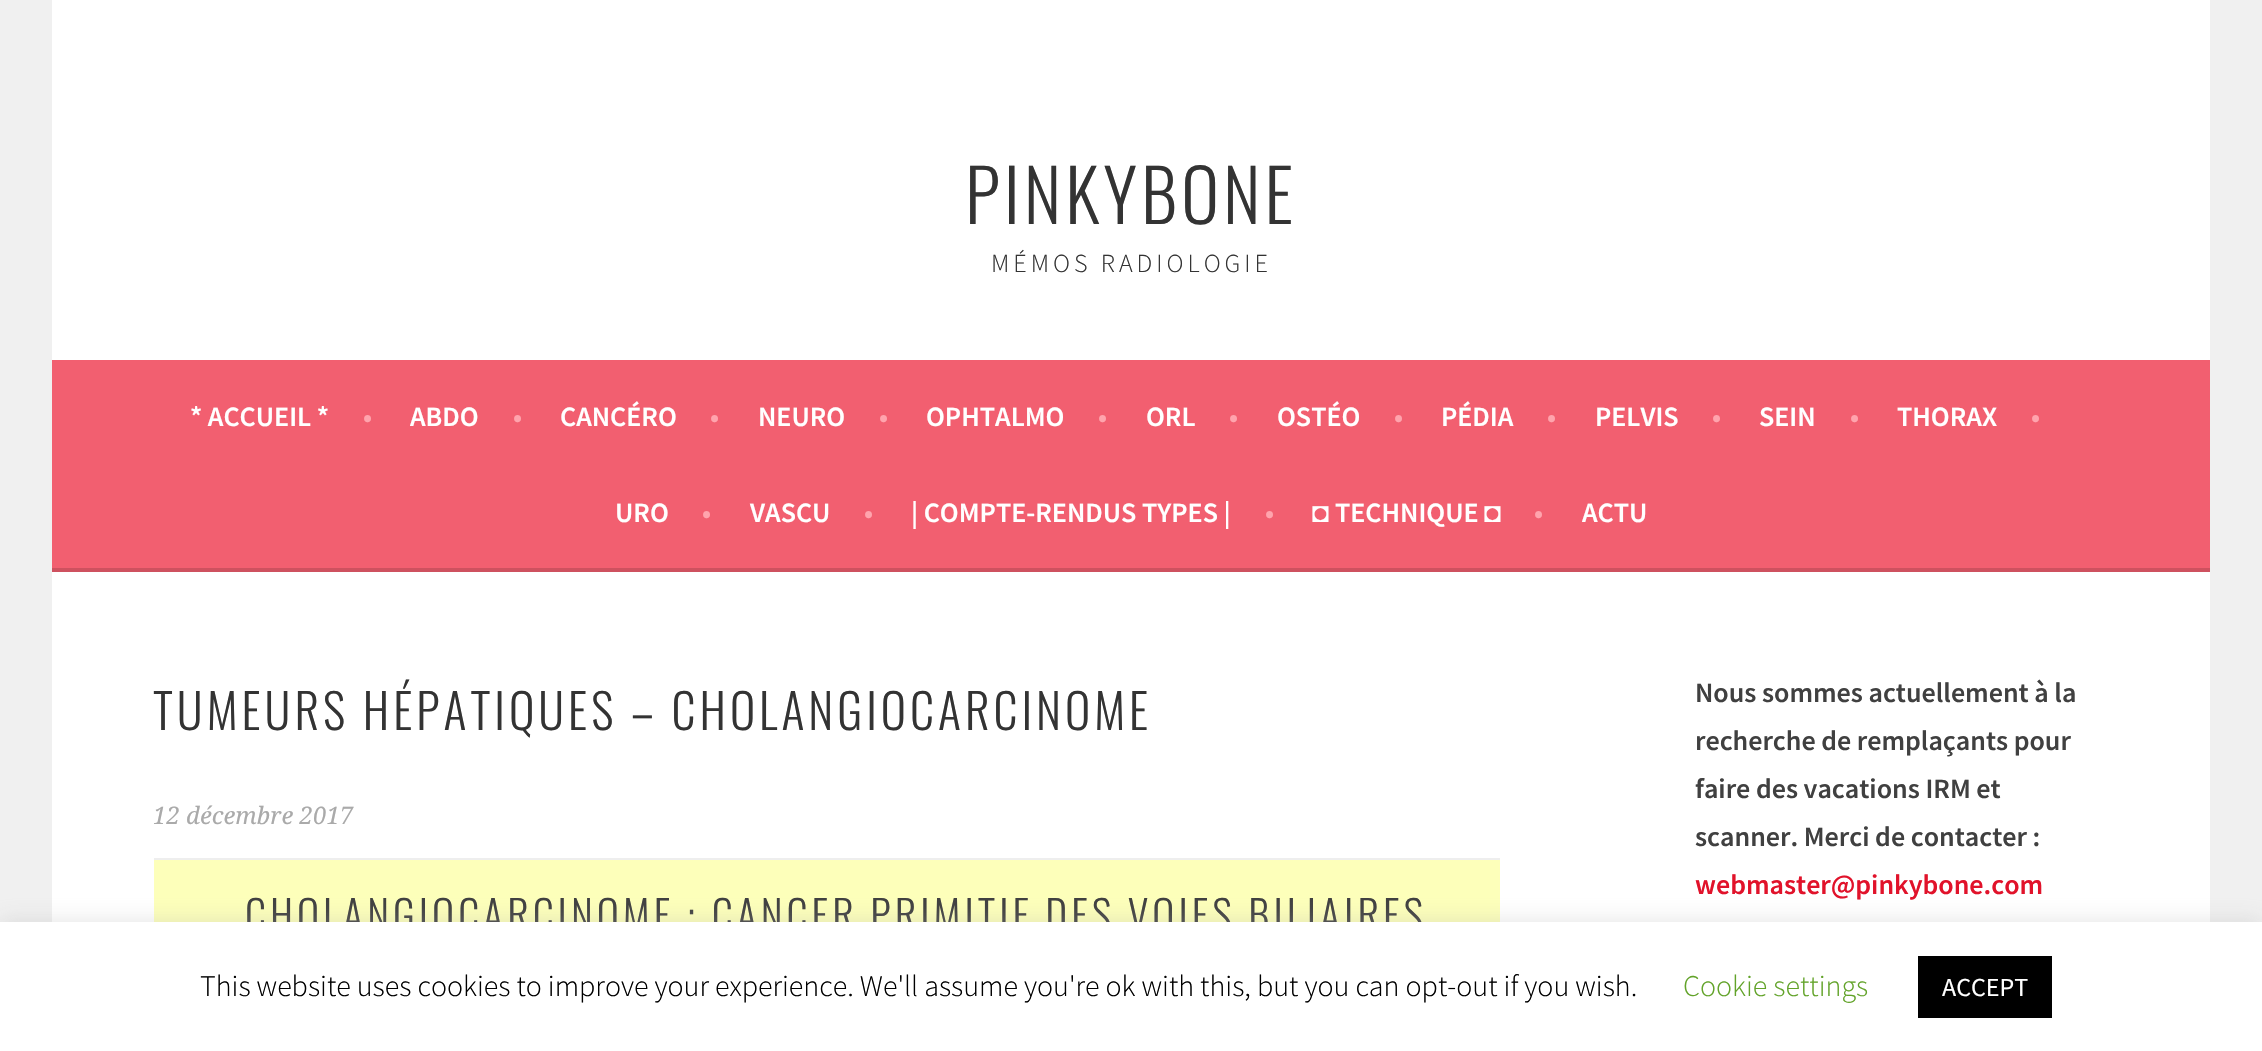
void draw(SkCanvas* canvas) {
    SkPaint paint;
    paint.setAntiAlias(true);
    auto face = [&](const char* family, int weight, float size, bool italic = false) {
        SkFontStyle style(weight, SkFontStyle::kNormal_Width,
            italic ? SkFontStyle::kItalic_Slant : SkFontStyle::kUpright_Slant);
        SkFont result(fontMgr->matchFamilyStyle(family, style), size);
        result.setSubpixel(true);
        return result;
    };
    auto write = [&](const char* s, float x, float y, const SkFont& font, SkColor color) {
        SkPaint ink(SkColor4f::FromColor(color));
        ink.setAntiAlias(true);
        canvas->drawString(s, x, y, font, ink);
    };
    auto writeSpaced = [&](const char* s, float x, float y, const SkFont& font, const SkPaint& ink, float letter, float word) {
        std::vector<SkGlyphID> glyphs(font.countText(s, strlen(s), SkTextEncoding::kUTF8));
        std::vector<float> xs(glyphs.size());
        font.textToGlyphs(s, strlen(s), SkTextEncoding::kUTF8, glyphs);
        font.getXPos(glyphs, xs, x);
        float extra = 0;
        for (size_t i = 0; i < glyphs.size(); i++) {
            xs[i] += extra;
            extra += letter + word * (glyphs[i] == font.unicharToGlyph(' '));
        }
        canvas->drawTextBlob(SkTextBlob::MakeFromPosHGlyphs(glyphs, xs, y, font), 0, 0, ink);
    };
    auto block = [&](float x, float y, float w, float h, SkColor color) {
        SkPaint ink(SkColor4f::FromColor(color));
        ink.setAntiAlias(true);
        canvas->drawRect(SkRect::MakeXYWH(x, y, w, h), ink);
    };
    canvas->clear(SkColorSetRGB(240, 240, 240));
    block(52, 0, 2158, 360, SK_ColorWHITE);
    auto kFont1 = face("Oswald", 300, 72);
    paint.setColor(SkColorSetRGB(51, 51, 51));
    writeSpaced("PINKYBONE", 965, 224, kFont1, paint, 4, 0);
    auto kFont2 = face("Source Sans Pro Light", 300, 26);
    writeSpaced("MÉMOS RADIOLOGIE", 991, 272, kFont2, paint, 4, 0);
    block(52, 360, 2158, 208, SkColorSetRGB(242, 95, 112));
    block(52, 568, 2158, 4, SkColorSetRGB(206, 81, 95));
    auto kFont3 = face("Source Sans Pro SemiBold", 600, 28);
    write("* ACCUEIL *", 190, 426, kFont3, SK_ColorWHITE);
    write("•", 363, 426, kFont3, SkColorSetRGB(255, 164, 173));
    write("ABDO", 410, 426, kFont3, SK_ColorWHITE);
    write("•", 513, 426, kFont3, SkColorSetRGB(255, 164, 173));
    write("CANCÉRO", 560, 426, kFont3, SK_ColorWHITE);
    write("•", 710, 426, kFont3, SkColorSetRGB(255, 164, 173));
    write("NEURO", 758, 426, kFont3, SK_ColorWHITE);
    write("•", 879, 426, kFont3, SkColorSetRGB(255, 164, 173));
    write("OPHTALMO", 926, 426, kFont3, SK_ColorWHITE);
    write("•", 1098, 426, kFont3, SkColorSetRGB(255, 164, 173));
    write("ORL", 1146, 426, kFont3, SK_ColorWHITE);
    write("•", 1229, 426, kFont3, SkColorSetRGB(255, 164, 173));
    write("OSTÉO", 1277, 426, kFont3, SK_ColorWHITE);
    write("•", 1394, 426, kFont3, SkColorSetRGB(255, 164, 173));
    write("PÉDIA", 1441, 426, kFont3, SK_ColorWHITE);
    write("•", 1547, 426, kFont3, SkColorSetRGB(255, 164, 173));
    write("PELVIS", 1595, 426, kFont3, SK_ColorWHITE);
    write("•", 1712, 426, kFont3, SkColorSetRGB(255, 164, 173));
    write("SEIN", 1759, 426, kFont3, SK_ColorWHITE);
    write("•", 1850, 426, kFont3, SkColorSetRGB(255, 164, 173));
    write("THORAX", 1897, 426, kFont3, SK_ColorWHITE);
    write("•", 2031, 426, kFont3, SkColorSetRGB(255, 164, 173));
    write("URO", 615, 522, kFont3, SK_ColorWHITE);
    write("•", 702, 522, kFont3, SkColorSetRGB(255, 164, 173));
    write("VASCU", 750, 522, kFont3, SK_ColorWHITE);
    write("•", 864, 522, kFont3, SkColorSetRGB(255, 164, 173));
    write("| COMPTE-RENDUS TYPES |", 911, 522, kFont3, SK_ColorWHITE);
    write("•", 1265, 522, kFont3, SkColorSetRGB(255, 164, 173));
    auto kFont4 = face("Liberation Sans", 700, 28);
    write("◘", 1312, 522, kFont4, SK_ColorWHITE);
    write("TECHNIQUE", 1335, 522, kFont3, SK_ColorWHITE);
    write("◘", 1484, 522, kFont4, SK_ColorWHITE);
    write("•", 1534, 522, kFont3, SkColorSetRGB(255, 164, 173));
    write("ACTU", 1582, 522, kFont3, SK_ColorWHITE);
    block(52, 572, 2158, 350, SK_ColorWHITE);
    auto kFont5 = face("Oswald", 300, 48);
    writeSpaced("TUMEURS HÉPATIQUES – CHOLANGIOCARCINOME", 153, 730, kFont5, paint, 4, 0);
    auto kFont6 = face("Droid Serif", 400, 24, true);
    write("12 décembre 2017", 153, 824, kFont6, SkColorSetRGB(170, 170, 170));
    block(154, 860, 1346, 62, SkColorSetRGB(253, 255, 186));
    block(154, 858, 1346, 2, SkColorSetRGB(238, 238, 238));
    auto kFont7 = face("Oswald", 300, 42);
    paint.setColor(SkColorSetRGB(64, 64, 64));
    writeSpaced("CHOLANGIOCARCINOME : CANCER PRIMITIF DES VOIES BILIAIRES", 245, 932, kFont7, paint, 4, 0);
    write("Nous sommes actuellement à la", 1695, 702, kFont3, SkColorSetRGB(64, 64, 64));
    write("recherche de remplaçants pour", 1695, 750, kFont3, SkColorSetRGB(64, 64, 64));
    write("faire des vacations IRM et", 1695, 798, kFont3, SkColorSetRGB(64, 64, 64));
    write("scanner. Merci de contacter :", 1695, 846, kFont3, SkColorSetRGB(64, 64, 64));
    write("webmaster@pinkybone.com", 1695, 894, kFont3, SkColorSetRGB(225, 18, 42));
    paint.setColor(SkColorSetARGB(77, 172, 171, 171));
    paint.setMaskFilter(SkMaskFilter::MakeBlur(kNormal_SkBlurStyle, 10));
    canvas->drawRect(SkRect::MakeXYWH(0, 920, 2262, 130), paint);
    paint.setMaskFilter(nullptr);
    block(0, 922, 2262, 129, SK_ColorWHITE);
    auto kFont8 = face("Source Sans Pro Light", 300, 30);
    write("This website uses cookies to improve your experience. We'll assume you're ok with this, but you can opt-out if you wish.", 200, 996, kFont8, SK_ColorBLACK);
    write("Cookie settings", 1683, 996, kFont8, SkColorSetRGB(98, 163, 41));
    block(1918, 956, 134, 62, SK_ColorBLACK);
    auto kFont9 = face("Source Sans Pro", 400, 26);
    write("ACCEPT", 1942, 996, kFont9, SK_ColorWHITE);
}
